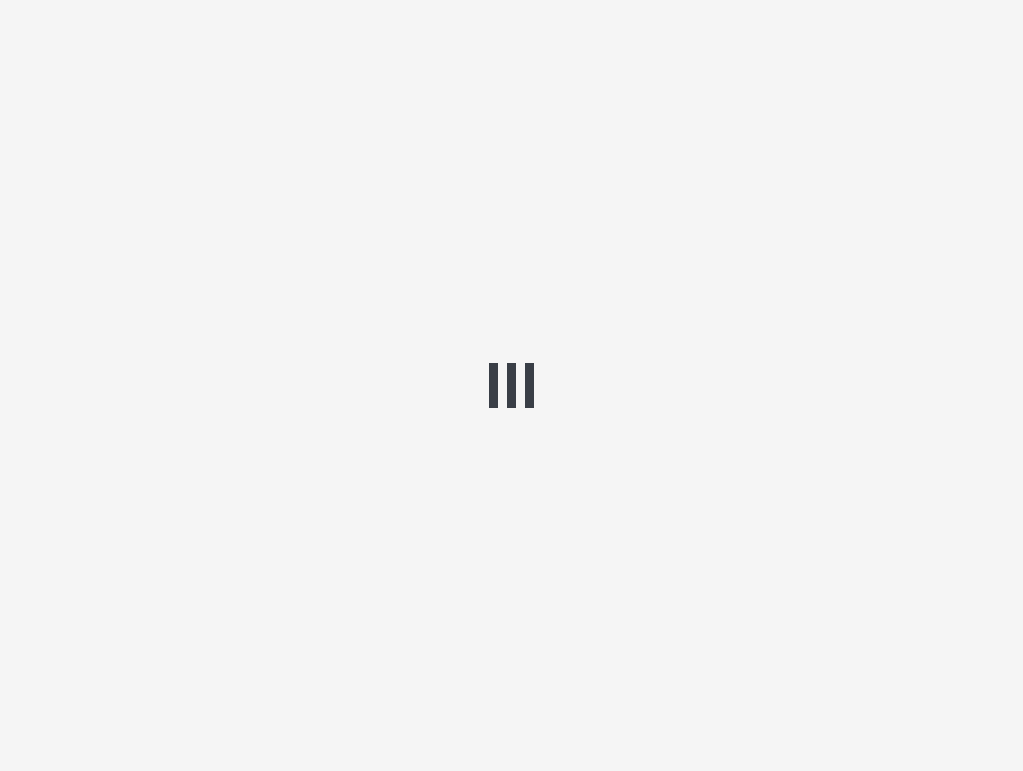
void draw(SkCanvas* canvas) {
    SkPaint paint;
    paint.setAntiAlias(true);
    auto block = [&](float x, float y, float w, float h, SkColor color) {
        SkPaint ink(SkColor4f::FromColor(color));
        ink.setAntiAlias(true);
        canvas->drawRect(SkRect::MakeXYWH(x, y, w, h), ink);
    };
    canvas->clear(SkColorSetRGB(245, 245, 245));
    block(525, 363, 9, 45, SkColorSetRGB(57, 62, 70));
    block(507, 363, 9, 45, SkColorSetRGB(57, 62, 70));
    block(489, 363, 9, 45, SkColorSetRGB(57, 62, 70));
}
